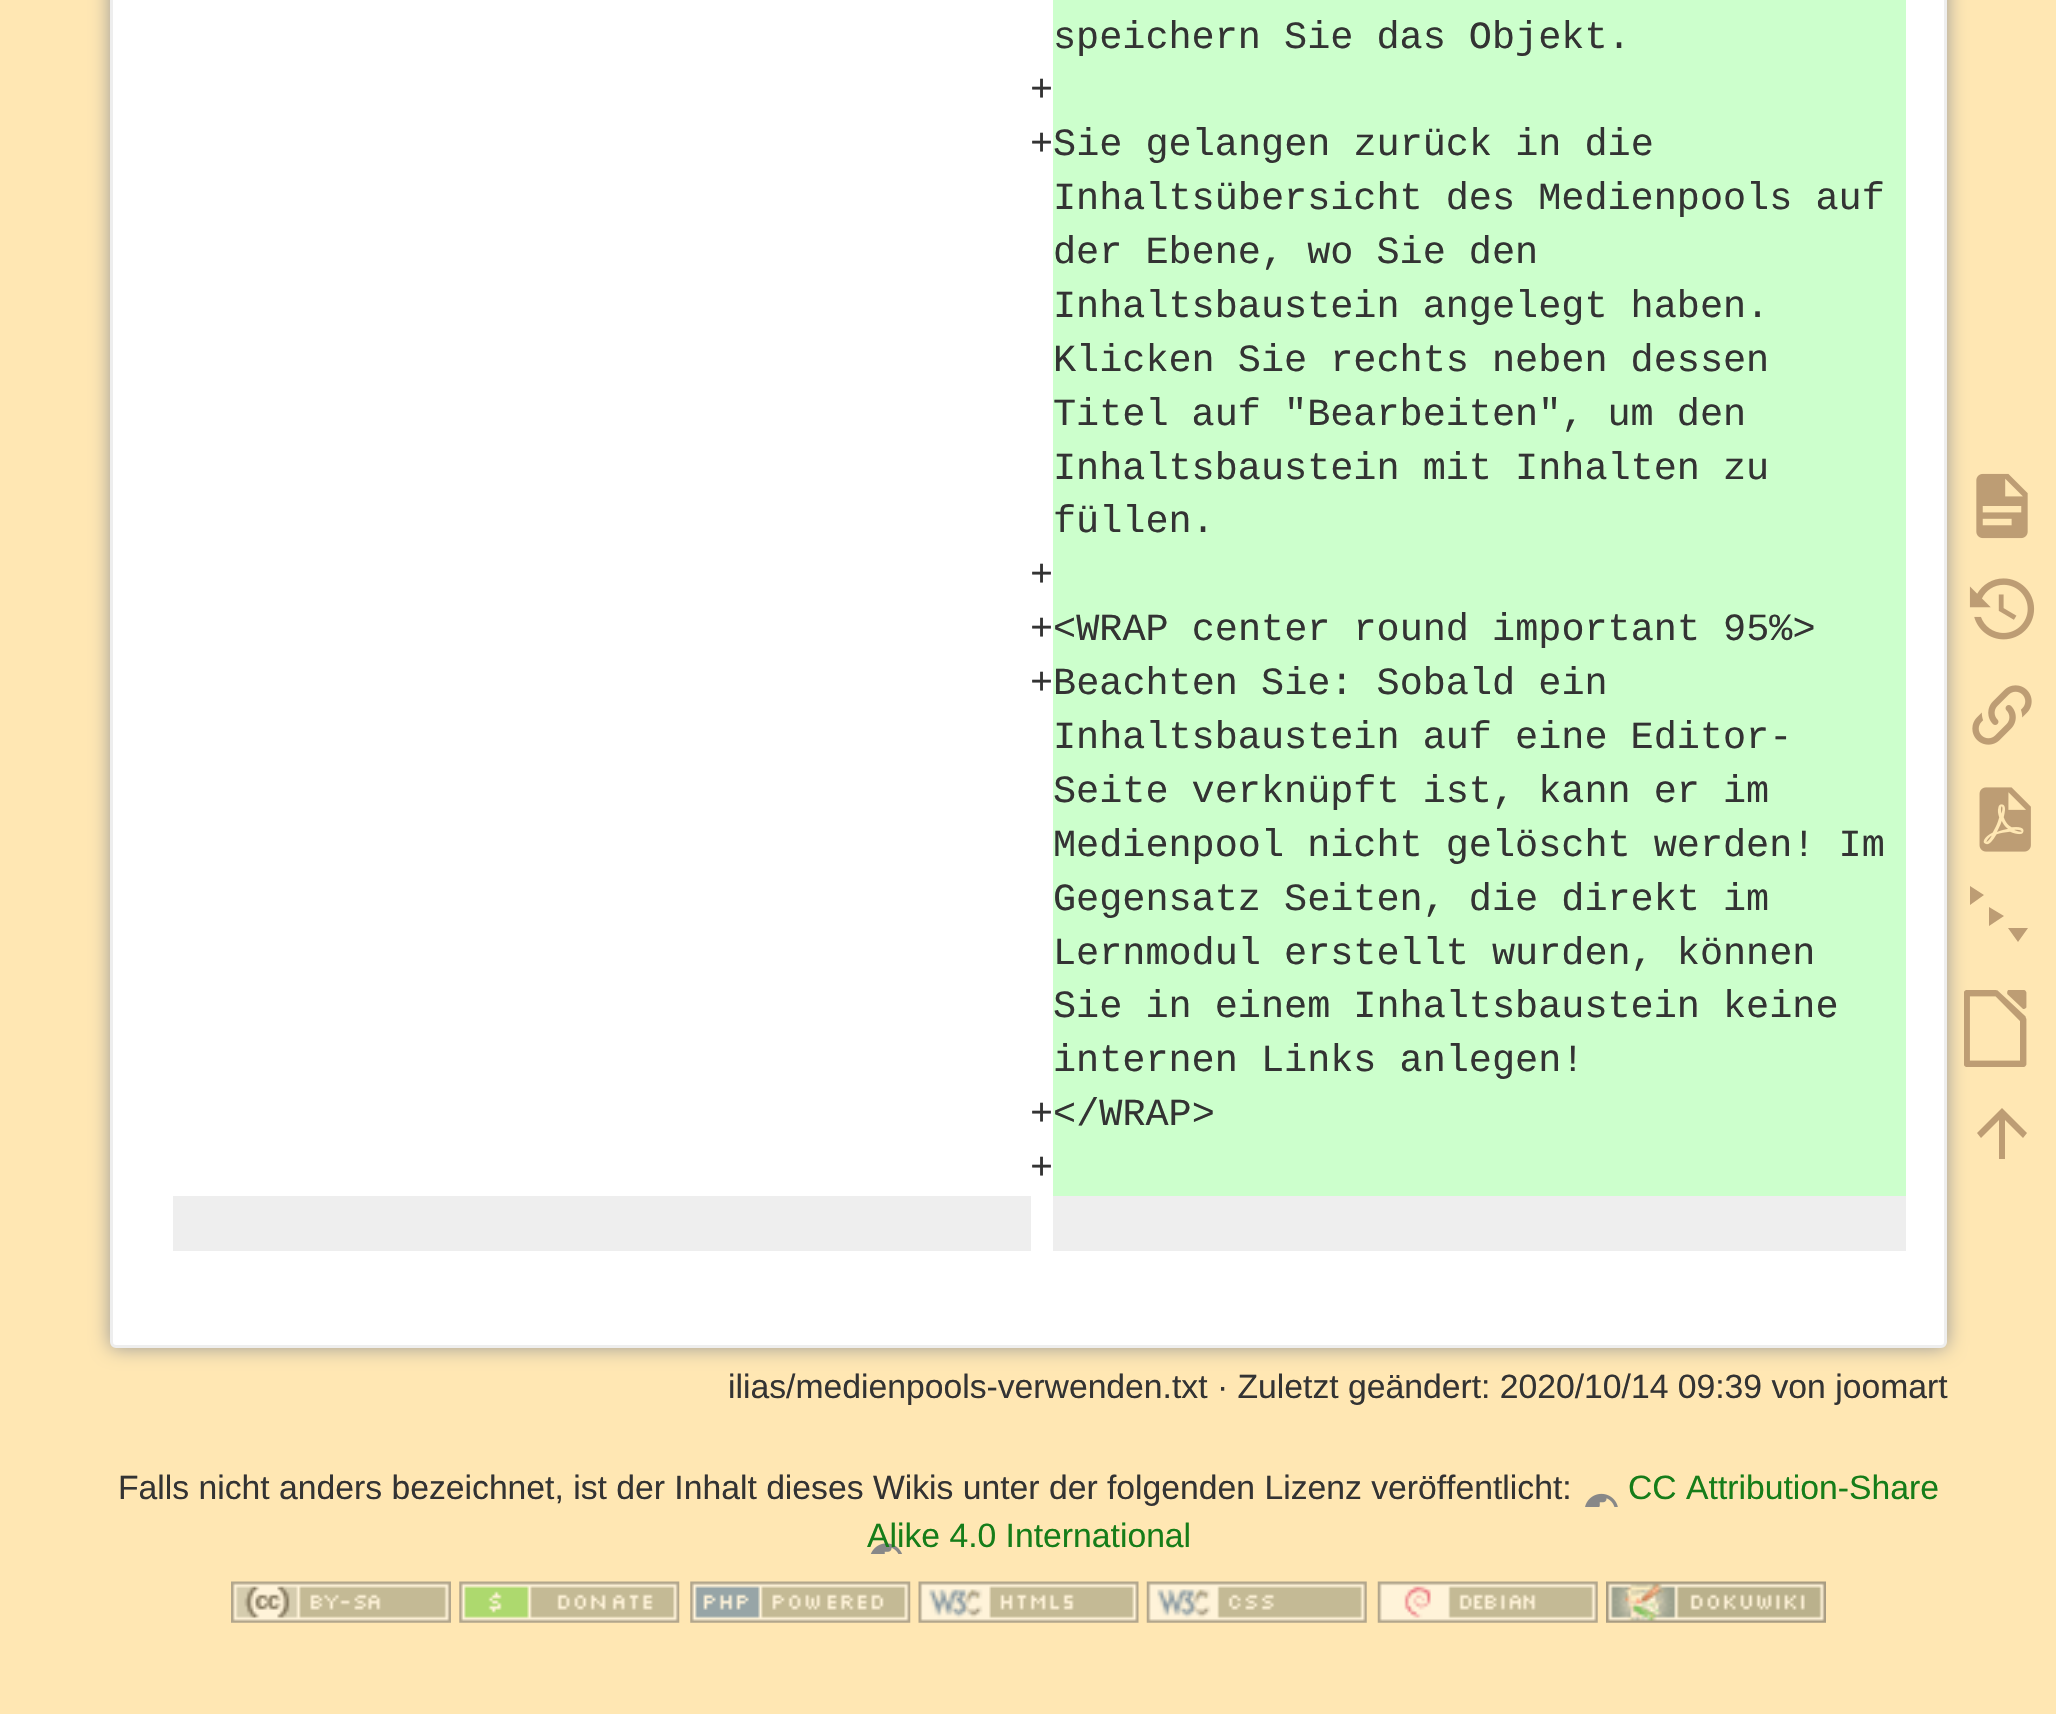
void draw(SkCanvas* canvas) {
    SkPaint paint;
    paint.setAntiAlias(true);
    auto face = [&](const char* family, int weight, float size, bool italic = false) {
        SkFontStyle style(weight, SkFontStyle::kNormal_Width,
            italic ? SkFontStyle::kItalic_Slant : SkFontStyle::kUpright_Slant);
        SkFont result(fontMgr->matchFamilyStyle(family, style), size);
        result.setSubpixel(true);
        return result;
    };
    auto write = [&](const char* s, float x, float y, const SkFont& font, SkColor color) {
        SkPaint ink(SkColor4f::FromColor(color));
        ink.setAntiAlias(true);
        canvas->drawString(s, x, y, font, ink);
    };
    auto block = [&](float x, float y, float w, float h, SkColor color) {
        SkPaint ink(SkColor4f::FromColor(color));
        ink.setAntiAlias(true);
        canvas->drawRect(SkRect::MakeXYWH(x, y, w, h), ink);
    };
    auto paste = [&](const char* path, float x, float y, float w, float h) {
        auto image = SkImages::DeferredFromEncodedData(SkData::MakeFromFileName(path));
        canvas->drawImageRect(image, SkRect::MakeXYWH(x, y, w, h), SkSamplingOptions());
    };
    canvas->clear(SkColorSetRGB(255, 231, 179));
    paint.setColor(SkColorSetRGB(153, 153, 153));
    paint.setMaskFilter(SkMaskFilter::MakeBlur(kNormal_SkBlurStyle, 9.5f));
    canvas->drawRoundRect(SkRect::MakeXYWH(110, -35, 1837, 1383), 6, 6, paint);
    paint.setMaskFilter(nullptr);
    paint.setColor(SK_ColorWHITE);
    canvas->drawRoundRect(SkRect::MakeXYWH(111.5f, -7.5f, 1834, 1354), 4.5f, 4.5f, paint);
    paint.setStyle(SkPaint::kStroke_Style);
    paint.setStrokeWidth(3);
    paint.setColor(SkColorSetRGB(238, 238, 238));
    canvas->drawRoundRect(SkRect::MakeXYWH(111.5f, -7.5f, 1834, 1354), 4.5f, 4.5f, paint);
    block(1053, 0, 853, 1196, SkColorSetRGB(204, 255, 204));
    auto kFont1 = face("Liberation Mono", 400, 38.5f);
    write("speichern Sie das Objekt.", 1053, 48, kFont1, SkColorSetRGB(51, 51, 51));
    write("+", 1030, 101, kFont1, SkColorSetRGB(51, 51, 51));
    write("+Sie gelangen zurück in die", 1030, 155, kFont1, SkColorSetRGB(51, 51, 51));
    write("Inhaltsübersicht des Medienpools auf", 1053, 209, kFont1, SkColorSetRGB(51, 51, 51));
    write("der Ebene, wo Sie den", 1053, 263, kFont1, SkColorSetRGB(51, 51, 51));
    write("Inhaltsbaustein angelegt haben.", 1053, 317, kFont1, SkColorSetRGB(51, 51, 51));
    write("Klicken Sie rechts neben dessen", 1053, 371, kFont1, SkColorSetRGB(51, 51, 51));
    write("Titel auf \"Bearbeiten\", um den", 1053, 425, kFont1, SkColorSetRGB(51, 51, 51));
    write("Inhaltsbaustein mit Inhalten zu", 1053, 479, kFont1, SkColorSetRGB(51, 51, 51));
    write("füllen.", 1053, 532, kFont1, SkColorSetRGB(51, 51, 51));
    write("+", 1030, 586, kFont1, SkColorSetRGB(51, 51, 51));
    write("+<WRAP center round important 95%>", 1030, 640, kFont1, SkColorSetRGB(51, 51, 51));
    write("+Beachten Sie: Sobald ein", 1030, 694, kFont1, SkColorSetRGB(51, 51, 51));
    write("Inhaltsbaustein auf eine Editor-", 1053, 748, kFont1, SkColorSetRGB(51, 51, 51));
    write("Seite verknüpft ist, kann er im", 1053, 802, kFont1, SkColorSetRGB(51, 51, 51));
    write("Medienpool nicht gelöscht werden! Im", 1053, 856, kFont1, SkColorSetRGB(51, 51, 51));
    write("Gegensatz Seiten, die direkt im", 1053, 910, kFont1, SkColorSetRGB(51, 51, 51));
    write("Lernmodul erstellt wurden, können", 1053, 964, kFont1, SkColorSetRGB(51, 51, 51));
    write("Sie in einem Inhaltsbaustein keine", 1053, 1017, kFont1, SkColorSetRGB(51, 51, 51));
    write("internen Links anlegen!", 1053, 1071, kFont1, SkColorSetRGB(51, 51, 51));
    write("+</WRAP>", 1030, 1125, kFont1, SkColorSetRGB(51, 51, 51));
    write("+", 1030, 1179, kFont1, SkColorSetRGB(51, 51, 51));
    block(173, 1196, 858, 55, SkColorSetRGB(238, 238, 238));
    block(1053, 1196, 853, 55, SkColorSetRGB(238, 238, 238));
    auto kFont2 = face("Liberation Sans", 400, 33.7f);
    write("ilias/medienpools-verwenden.txt · Zuletzt geändert: 2020/10/14 09:39 von joomart", 728, 1398, kFont2, SkColorSetRGB(51, 51, 51));
    paste("pic1.png", 1976, 473, 52, 66);
    paste("pic2.png", 1969, 578, 66, 62);
    paste("pic3.png", 1972, 685, 60, 60);
    paste("pic4.png", 1979, 787, 52, 65);
    paint.setStyle(SkPaint::kFill_Style);
    paint.setColor(SkColorSetRGB(189, 157, 116));
    canvas->drawPath(SkPathBuilder().moveTo(1970, 886).lineTo(1984, 895).lineTo(1970, 905).close().moveTo(1989, 907).lineTo(2004, 916).lineTo(1989, 926).close().moveTo(2008, 928).lineTo(2028, 928).lineTo(2018, 942).close().detach(), paint);
    paste("pic5.png", 1964, 990, 63, 77);
    canvas->drawPath(SkPathBuilder().moveTo(2005, 1159).lineTo(1999, 1159).lineTo(1999, 1120).lineTo(1981, 1138).lineTo(1977, 1133).lineTo(2002, 1108).lineTo(2027, 1133).lineTo(2023, 1138).lineTo(2005, 1120).close().detach(), paint);
    write("Falls nicht anders bezeichnet, ist der Inhalt dieses Wikis unter der folgenden Lizenz veröffentlicht:", 118, 1499, kFont2, SkColorSetRGB(51, 51, 51));
    write("CC Attribution-Share", 1628, 1499, kFont2, SkColorSetRGB(22, 125, 25));
    paste("pic6.png", 870, 1493, 748, 61);
    write("Alike 4.0 International", 867, 1547, kFont2, SkColorSetRGB(22, 125, 25));
    paste("pic7.png", 231, 1581, 220, 42);
    paste("pic8.png", 459, 1581, 221, 42);
    paste("pic9.png", 690, 1581, 221, 42);
    paste("pic10.png", 918, 1581, 221, 42);
    paste("pic11.png", 1146, 1581, 221, 42);
    paste("pic12.png", 1377, 1581, 221, 42);
    paste("pic13.png", 1606, 1581, 220, 42);
}
